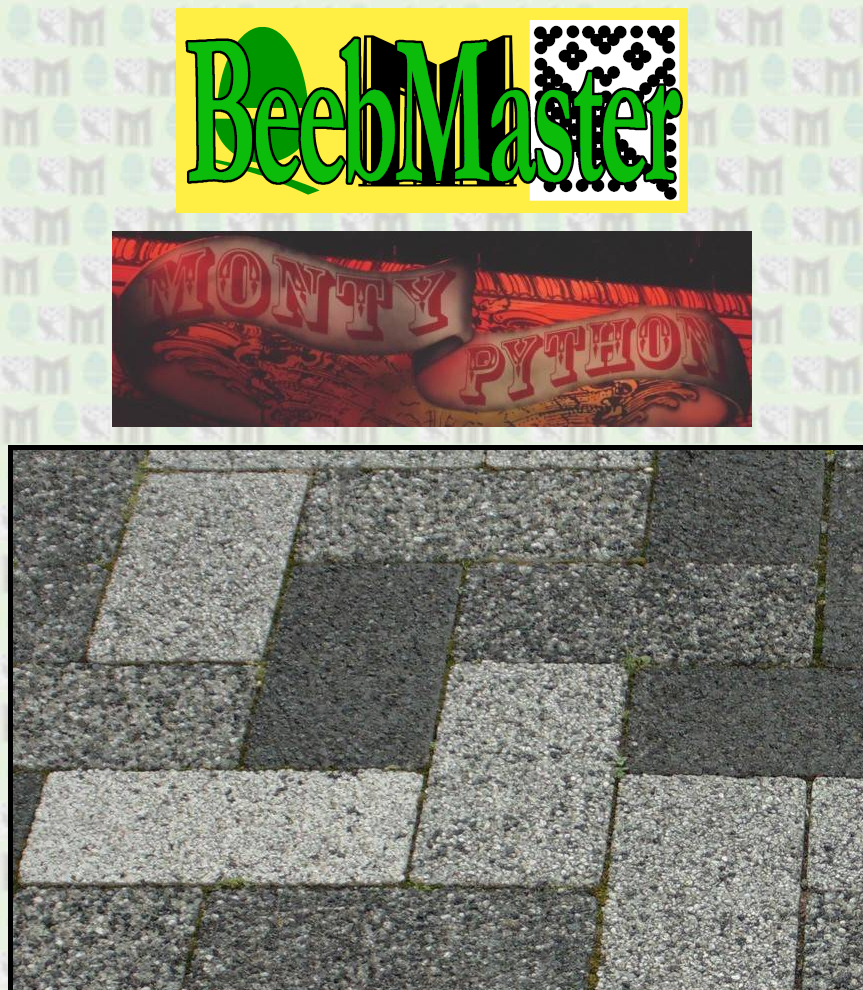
void draw(SkCanvas* canvas) {
    SkPaint paint;
    paint.setAntiAlias(true);
    auto paste = [&](const char* path, float x, float y, float w, float h) {
        auto image = SkImages::DeferredFromEncodedData(SkData::MakeFromFileName(path));
        canvas->drawImageRect(image, SkRect::MakeXYWH(x, y, w, h), SkSamplingOptions());
    };
    canvas->clear(SK_ColorWHITE);
    paste("pic1.png", 0, 0, 863, 990);
    paste("pic2.png", 176, 8, 512, 205);
    paste("pic3.png", 112, 231, 640, 196);
    paint.setStyle(SkPaint::kStroke_Style);
    paint.setStrokeWidth(5);
    paint.setColor(SK_ColorBLACK);
    canvas->drawRect(SkRect::MakeXYWH(10.5f, 447.5f, 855, 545), paint);
    paste("pic4.png", 13, 450, 850, 540);
}
